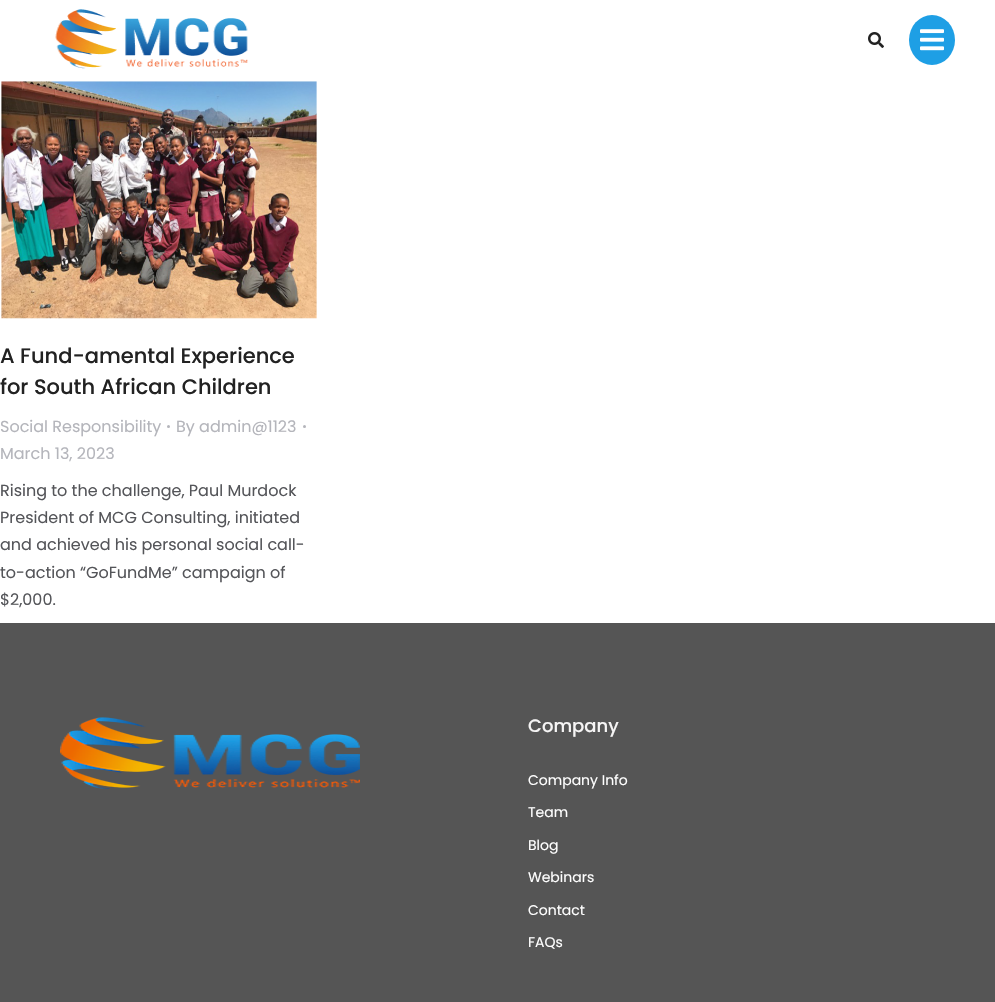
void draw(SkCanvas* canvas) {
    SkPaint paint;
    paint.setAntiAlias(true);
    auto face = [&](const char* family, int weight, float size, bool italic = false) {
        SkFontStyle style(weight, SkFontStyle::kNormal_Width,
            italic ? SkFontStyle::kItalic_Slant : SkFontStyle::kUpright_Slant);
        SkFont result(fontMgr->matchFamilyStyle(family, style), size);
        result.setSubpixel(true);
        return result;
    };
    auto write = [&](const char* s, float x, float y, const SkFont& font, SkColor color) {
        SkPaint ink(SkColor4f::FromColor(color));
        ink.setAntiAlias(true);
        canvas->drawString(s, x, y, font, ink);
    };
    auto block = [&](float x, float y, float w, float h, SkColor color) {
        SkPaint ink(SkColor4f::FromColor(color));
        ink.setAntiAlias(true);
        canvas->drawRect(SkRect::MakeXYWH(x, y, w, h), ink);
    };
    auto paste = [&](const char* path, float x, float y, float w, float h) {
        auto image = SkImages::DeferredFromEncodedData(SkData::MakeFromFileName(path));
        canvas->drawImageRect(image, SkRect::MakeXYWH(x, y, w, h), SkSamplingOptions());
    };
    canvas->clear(SK_ColorWHITE);
    paste("pic1.png", 55, 9, 193, 60);
    paste("pic2.png", 868, 32, 16, 16);
    paint.setColor(SkColorSetRGB(30, 159, 229));
    canvas->drawOval(SkRect::MakeXYWH(909, 15, 46, 50), paint);
    paste("pic3.png", 920, 29, 24, 22);
    paste("pic4.png", 1, 81, 316, 238);
    auto kFont1 = face("Poppins", 500, 21);
    write("A Fund-amental Experience", 0, 363, kFont1, SkColorSetRGB(34, 34, 34));
    write("for South African Children", 0, 394, kFont1, SkColorSetRGB(34, 34, 34));
    auto kFont2 = face("Poppins", 400, 16);
    write("Social Responsibility", 0, 432, kFont2, SkColorSetRGB(180, 181, 187));
    paint.setColor(SkColorSetRGB(180, 181, 187));
    canvas->drawCircle(168.5f, 426.5f, 1.5f, paint);
    write("By admin@1123", 176, 432, kFont2, SkColorSetRGB(180, 181, 187));
    canvas->drawCircle(304.5f, 426.5f, 1.5f, paint);
    write("March 13, 2023", 0, 459, kFont2, SkColorSetRGB(180, 181, 187));
    write("Rising to the challenge, Paul Murdock", 0, 496, kFont2, SkColorSetRGB(84, 85, 89));
    write("President of MCG Consulting, initiated", 0, 523, kFont2, SkColorSetRGB(84, 85, 89));
    write("and achieved his personal social call-", 0, 550, kFont2, SkColorSetRGB(84, 85, 89));
    write("to-action “GoFundMe” campaign of", 0, 578, kFont2, SkColorSetRGB(84, 85, 89));
    write("$2,000.", 0, 605, kFont2, SkColorSetRGB(84, 85, 89));
    block(0, 623, 995, 379, SkColorSetRGB(85, 85, 85));
    paste("pic5.png", 60, 717, 300, 72);
    auto kFont3 = face("Poppins", 500, 18);
    write("Company", 528, 732, kFont3, SkColorSetRGB(246, 245, 245));
    auto kFont4 = face("Poppins", 400, 14);
    write("Company Info", 528, 785, kFont4, SK_ColorWHITE);
    write("Team", 528, 817, kFont4, SK_ColorWHITE);
    write("Blog", 528, 850, kFont4, SK_ColorWHITE);
    write("Webinars", 528, 882, kFont4, SK_ColorWHITE);
    write("Contact", 528, 915, kFont4, SK_ColorWHITE);
    write("FAQs", 528, 947, kFont4, SK_ColorWHITE);
}
